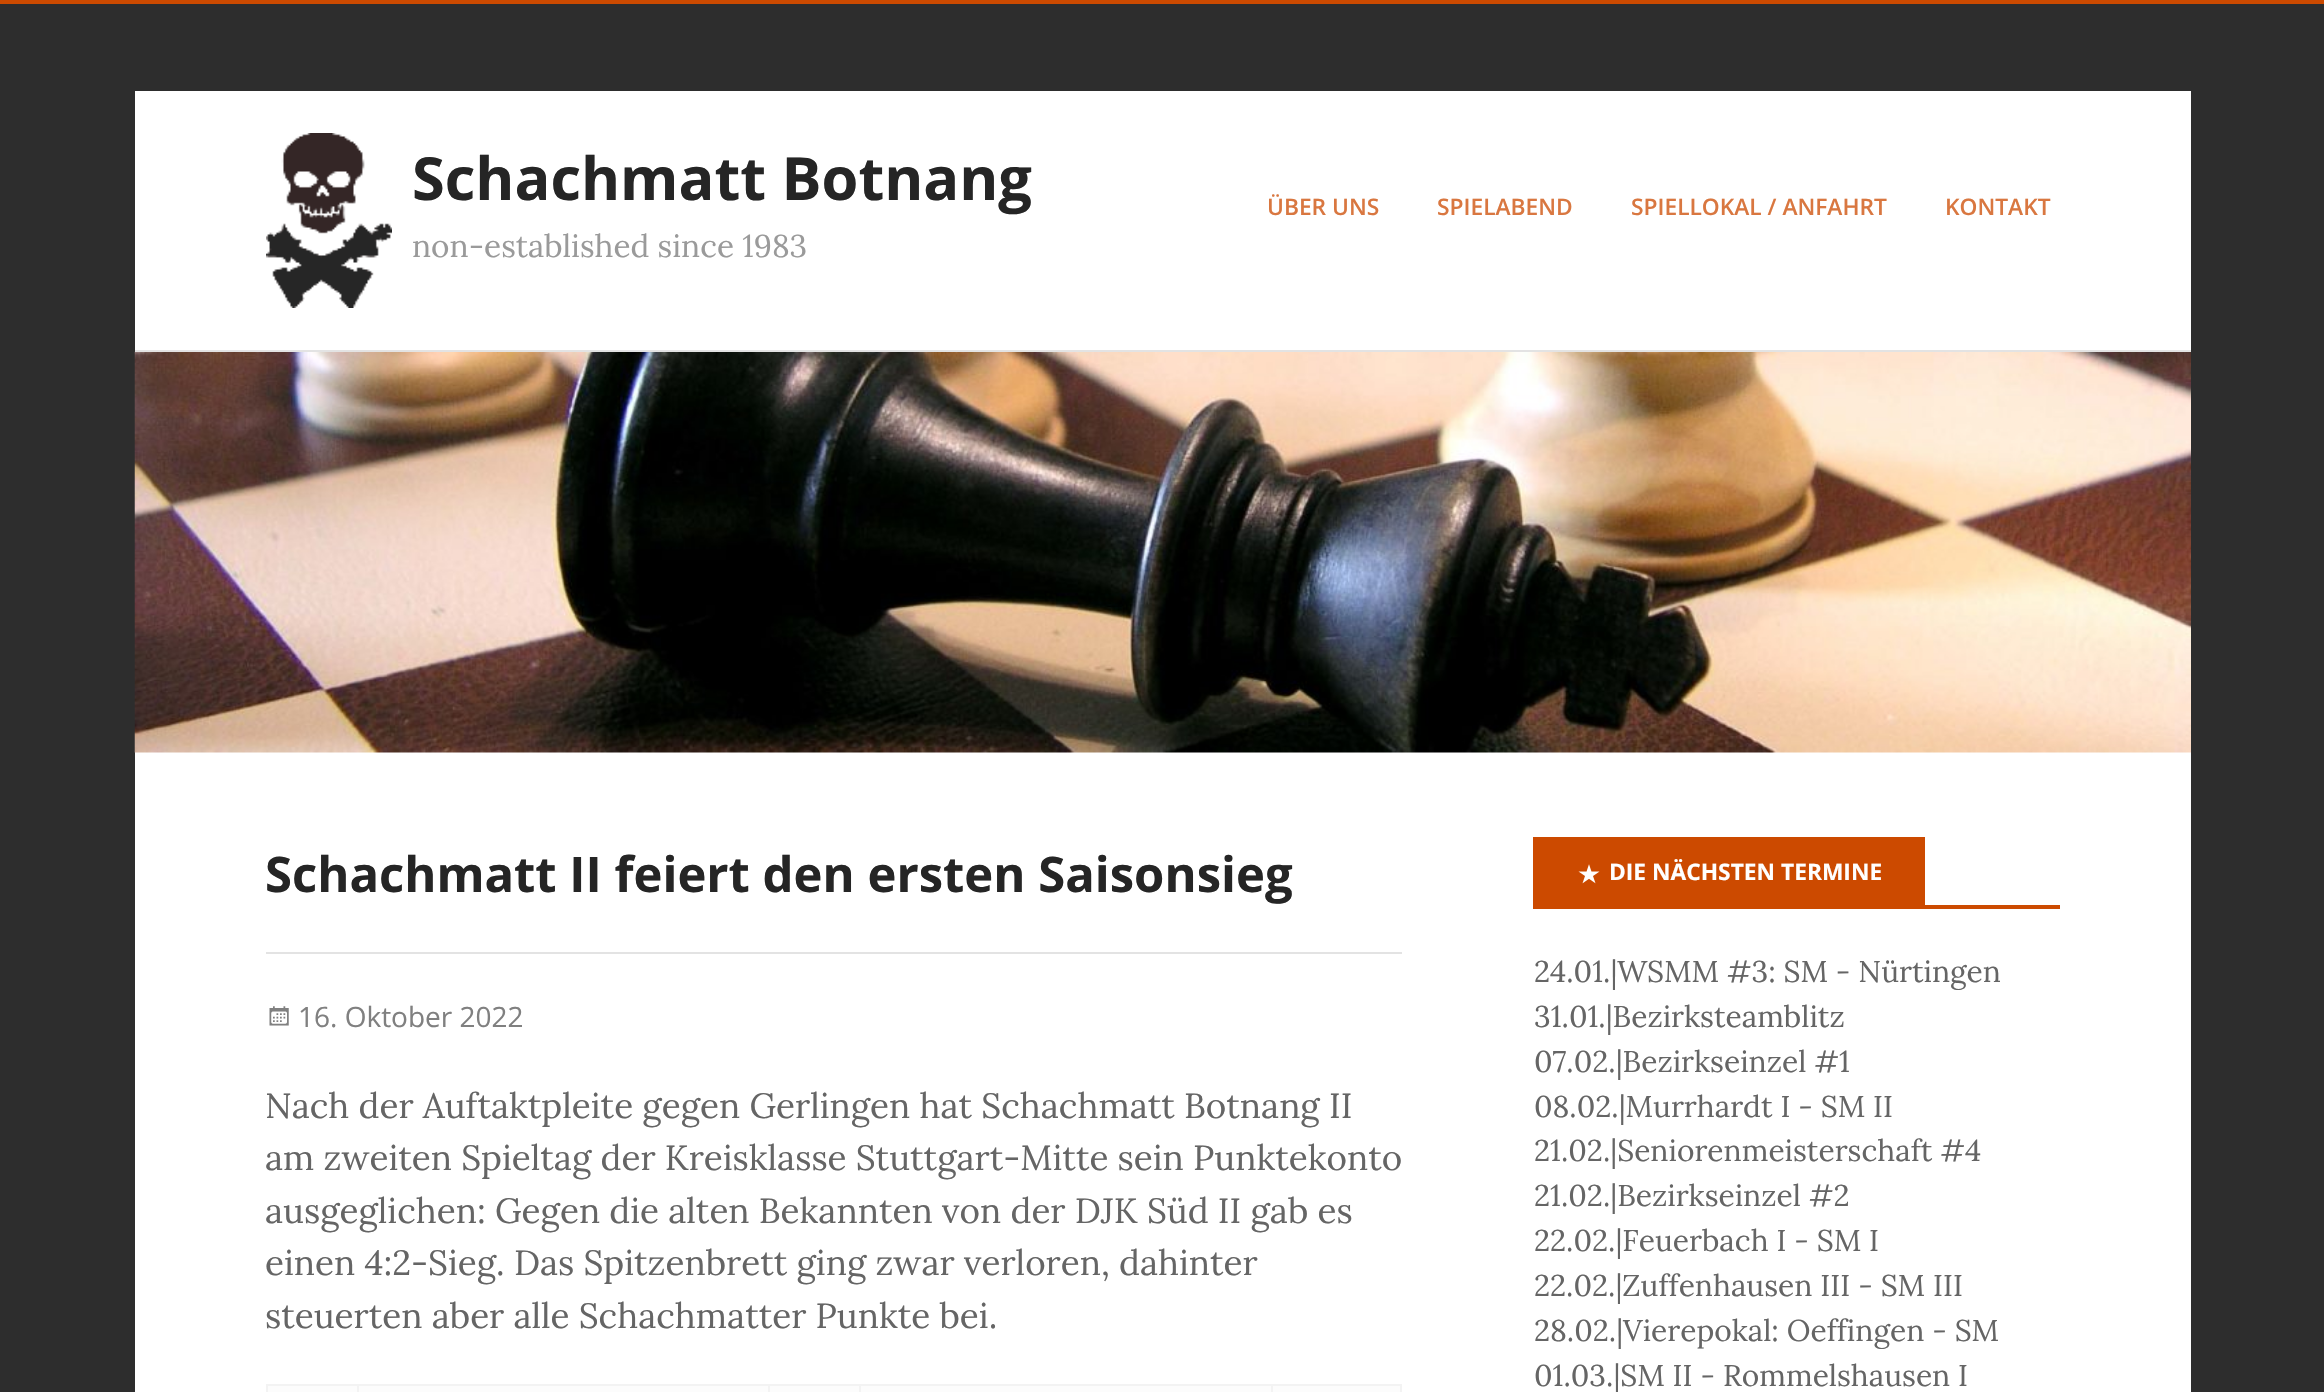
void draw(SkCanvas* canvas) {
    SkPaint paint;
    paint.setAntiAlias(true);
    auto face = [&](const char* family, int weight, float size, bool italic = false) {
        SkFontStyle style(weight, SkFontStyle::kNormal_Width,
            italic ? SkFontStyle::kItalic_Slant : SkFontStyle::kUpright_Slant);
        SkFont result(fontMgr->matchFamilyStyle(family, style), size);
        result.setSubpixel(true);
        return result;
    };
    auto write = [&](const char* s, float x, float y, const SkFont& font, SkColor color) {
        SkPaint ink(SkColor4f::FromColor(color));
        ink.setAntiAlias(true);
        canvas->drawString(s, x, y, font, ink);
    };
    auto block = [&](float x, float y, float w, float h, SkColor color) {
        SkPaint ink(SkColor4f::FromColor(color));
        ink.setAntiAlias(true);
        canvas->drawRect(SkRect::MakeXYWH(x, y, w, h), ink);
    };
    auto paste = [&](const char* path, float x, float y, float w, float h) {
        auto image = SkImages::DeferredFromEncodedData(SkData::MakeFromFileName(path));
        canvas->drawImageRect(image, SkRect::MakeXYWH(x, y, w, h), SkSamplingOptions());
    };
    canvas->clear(SkColorSetRGB(45, 45, 45));
    block(0, 0, 2324, 4, SkColorSetRGB(204, 74, 0));
    block(135, 91, 2056, 1301, SK_ColorWHITE);
    paste("pic2.png", 134, 351, 2057, 402);
    block(135, 350, 2056, 2, SkColorSetRGB(227, 227, 227));
    paste("pic1.png", 266, 133, 126, 175);
    auto kFont1 = face("Open Sans", 700, 59.5f);
    write("Schachmatt Botnang", 412, 200, kFont1, SkColorSetRGB(37, 37, 37));
    auto kFont2 = face("Lora", 400, 31.5f);
    write("non-established since 1983", 412, 257, kFont2, SkColorSetRGB(154, 154, 154));
    auto kFont3 = face("Open Sans", 600, 22.75f);
    write("ÜBER UNS", 1267, 215, kFont3, SkColorSetRGB(217, 119, 64));
    write("SPIELABEND", 1437, 215, kFont3, SkColorSetRGB(217, 119, 64));
    write("SPIELLOKAL / ANFAHRT", 1631, 215, kFont3, SkColorSetRGB(217, 119, 64));
    write("KONTAKT", 1945, 215, kFont3, SkColorSetRGB(217, 119, 64));
    block(266, 952, 1136, 2, SkColorSetRGB(227, 227, 227));
    auto kFont4 = face("Open Sans", 700, 49);
    write("Schachmatt II feiert den ersten Saisonsieg", 265, 892, kFont4, SkColorSetRGB(37, 37, 37));
    paste("pic3.png", 269, 1006, 20, 20);
    auto kFont5 = face("Open Sans", 400, 28);
    write("16. Oktober 2022", 298, 1027, kFont5, SkColorSetRGB(128, 128, 128));
    auto kFont6 = face("Lora", 400, 35);
    write("Nach der Auftaktpleite gegen Gerlingen hat Schachmatt Botnang II", 265, 1118, kFont6, SkColorSetRGB(101, 101, 101));
    write("am zweiten Spieltag der Kreisklasse Stuttgart-Mitte sein Punktekonto", 265, 1170, kFont6, SkColorSetRGB(101, 101, 101));
    write("ausgeglichen: Gegen die alten Bekannten von der DJK Süd II gab es", 265, 1223, kFont6, SkColorSetRGB(101, 101, 101));
    write("einen 4:2-Sieg. Das Spitzenbrett ging zwar verloren, dahinter", 265, 1275, kFont6, SkColorSetRGB(101, 101, 101));
    write("steuerten aber alle Schachmatter Punkte bei.", 265, 1328, kFont6, SkColorSetRGB(101, 101, 101));
    block(266, 1386, 1136, 6, SkColorSetRGB(252, 252, 252));
    block(1271, 1384, 131, 2, SkColorSetRGB(243, 243, 243));
    block(1271, 1384, 2, 8, SkColorSetRGB(243, 243, 243));
    block(859, 1384, 413, 2, SkColorSetRGB(243, 243, 243));
    block(859, 1384, 2, 8, SkColorSetRGB(243, 243, 243));
    block(768, 1384, 93, 2, SkColorSetRGB(243, 243, 243));
    block(768, 1384, 2, 8, SkColorSetRGB(243, 243, 243));
    block(357, 1384, 413, 2, SkColorSetRGB(243, 243, 243));
    block(357, 1384, 2, 8, SkColorSetRGB(243, 243, 243));
    block(266, 1384, 93, 2, SkColorSetRGB(243, 243, 243));
    block(266, 1384, 2, 8, SkColorSetRGB(243, 243, 243));
    block(1400, 1384, 2, 8, SkColorSetRGB(243, 243, 243));
    block(1533, 905, 527, 4, SkColorSetRGB(204, 74, 0));
    block(1533, 837, 392, 68, SkColorSetRGB(204, 74, 0));
    paste("pic4.png", 1578, 864, 22, 20);
    auto kFont7 = face("Open Sans", 700, 22.75f);
    write("DIE NÄCHSTEN TERMINE", 1609, 880, kFont7, SK_ColorWHITE);
    auto kFont8 = face("Lora", 400, 29.9f);
    write("24.01.|WSMM #3: SM - Nürtingen", 1534, 982, kFont8, SkColorSetRGB(101, 101, 101));
    write("31.01.|Bezirksteamblitz", 1534, 1027, kFont8, SkColorSetRGB(101, 101, 101));
    write("07.02.|Bezirkseinzel #1", 1534, 1072, kFont8, SkColorSetRGB(101, 101, 101));
    write("08.02.|Murrhardt I - SM II", 1534, 1117, kFont8, SkColorSetRGB(101, 101, 101));
    write("21.02.|Seniorenmeisterschaft #4", 1534, 1161, kFont8, SkColorSetRGB(101, 101, 101));
    write("21.02.|Bezirkseinzel #2", 1534, 1206, kFont8, SkColorSetRGB(101, 101, 101));
    write("22.02.|Feuerbach I - SM I", 1534, 1251, kFont8, SkColorSetRGB(101, 101, 101));
    write("22.02.|Zuffenhausen III - SM III", 1534, 1296, kFont8, SkColorSetRGB(101, 101, 101));
    write("28.02.|Vierepokal: Oeffingen - SM", 1534, 1341, kFont8, SkColorSetRGB(101, 101, 101));
    write("01.03.|SM II - Rommelshausen I", 1534, 1386, kFont8, SkColorSetRGB(101, 101, 101));
}
